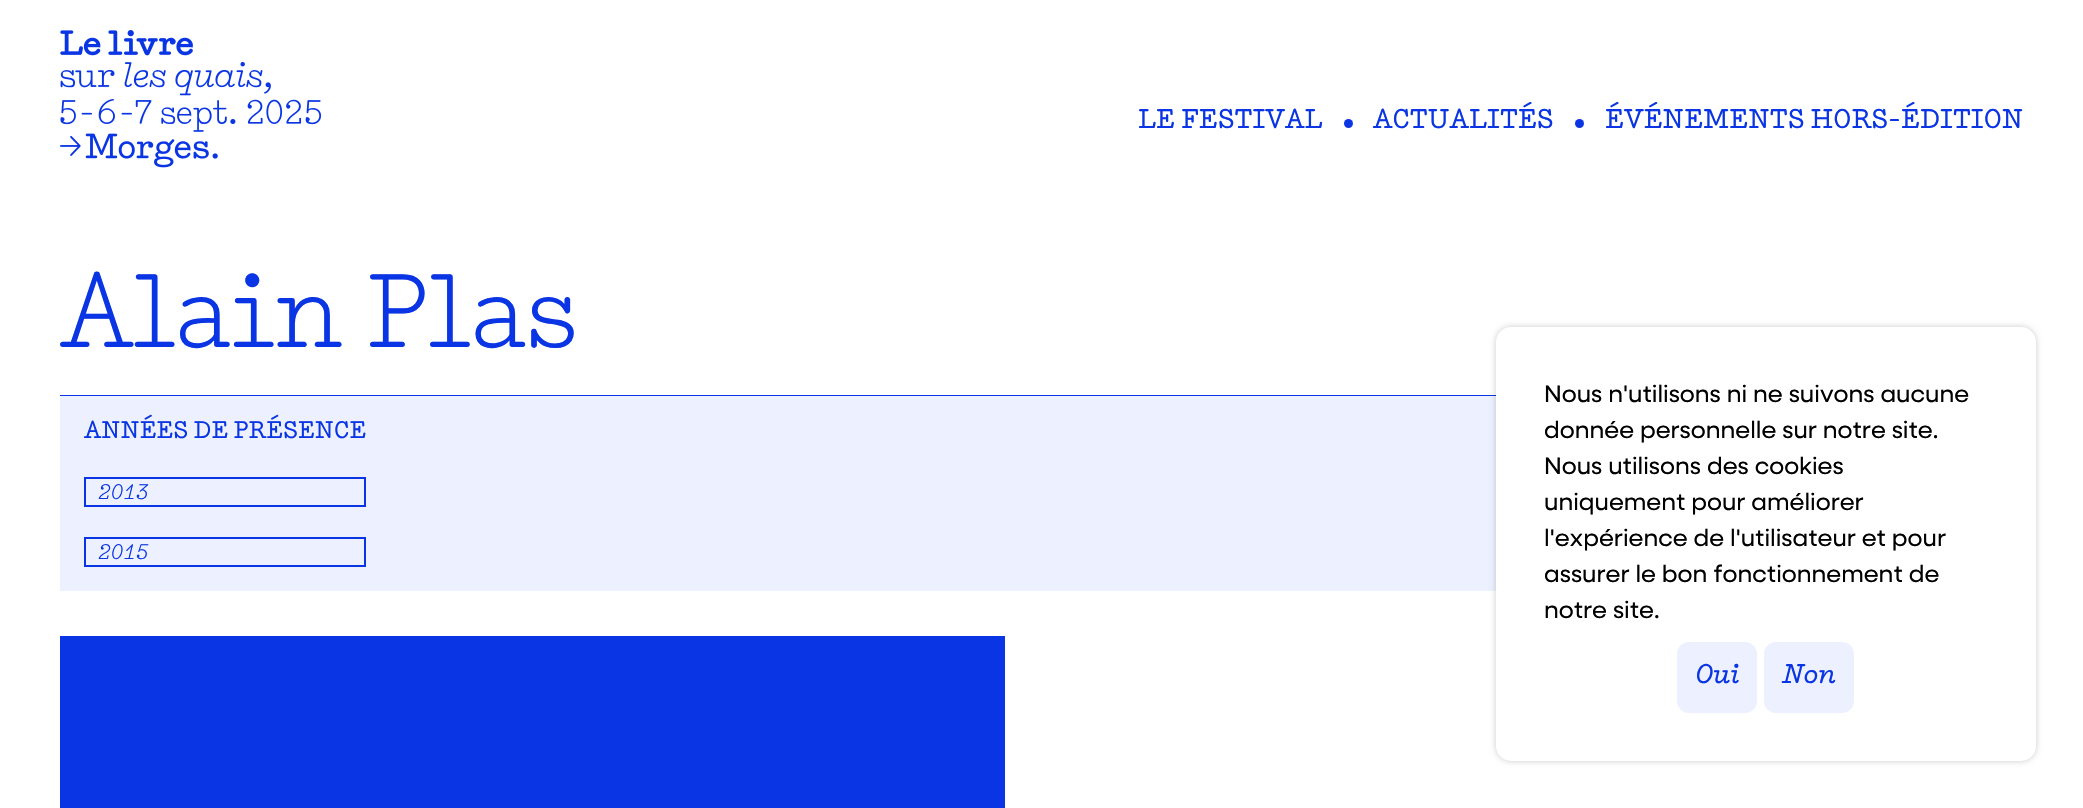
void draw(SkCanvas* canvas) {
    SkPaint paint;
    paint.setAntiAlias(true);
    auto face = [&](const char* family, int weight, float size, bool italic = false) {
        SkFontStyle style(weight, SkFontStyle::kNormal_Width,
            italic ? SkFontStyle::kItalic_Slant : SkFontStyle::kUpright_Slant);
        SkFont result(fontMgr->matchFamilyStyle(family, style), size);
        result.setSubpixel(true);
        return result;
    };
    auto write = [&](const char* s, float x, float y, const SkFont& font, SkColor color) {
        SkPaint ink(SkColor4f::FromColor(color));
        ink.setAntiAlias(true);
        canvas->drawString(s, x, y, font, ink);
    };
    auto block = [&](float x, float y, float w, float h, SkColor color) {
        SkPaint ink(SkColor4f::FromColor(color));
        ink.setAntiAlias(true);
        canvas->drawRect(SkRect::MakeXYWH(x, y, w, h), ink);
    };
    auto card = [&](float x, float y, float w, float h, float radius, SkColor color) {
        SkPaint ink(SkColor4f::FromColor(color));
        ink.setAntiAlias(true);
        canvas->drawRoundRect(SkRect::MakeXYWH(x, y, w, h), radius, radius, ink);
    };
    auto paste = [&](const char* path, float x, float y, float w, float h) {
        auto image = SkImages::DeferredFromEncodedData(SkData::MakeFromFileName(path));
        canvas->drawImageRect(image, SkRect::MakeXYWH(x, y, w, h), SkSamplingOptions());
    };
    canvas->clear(SK_ColorWHITE);
    paste("pic1.png", 60, 30, 262, 138);
    auto kFont1 = face("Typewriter", 500, 27);
    write("LE FESTIVAL", 1138, 128, kFont1, SkColorSetRGB(10, 53, 228));
    paint.setColor(SkColorSetRGB(10, 53, 228));
    canvas->drawCircle(1348.5f, 123.5f, 4.5f, paint);
    write("ACTUALITÉS", 1373, 128, kFont1, SkColorSetRGB(10, 53, 228));
    canvas->drawCircle(1579.5f, 123.5f, 4.5f, paint);
    write("ÉVÉNEMENTS HORS-ÉDITION", 1605, 128, kFont1, SkColorSetRGB(10, 53, 228));
    block(60, 395, 1436, 1, SkColorSetRGB(10, 53, 228));
    auto kFont2 = face("Typewriter", 400, 104);
    write("Alain Plas", 60, 347, kFont2, SkColorSetRGB(10, 53, 228));
    block(60, 396, 1436, 195, SkColorSetRGB(237, 241, 255));
    auto kFont3 = face("Typewriter", 500, 24);
    write("ANNÉES DE PRÉSENCE", 84, 438, kFont3, SkColorSetRGB(10, 53, 228));
    paint.setStyle(SkPaint::kStroke_Style);
    paint.setStrokeWidth(2);
    canvas->drawRect(SkRect::MakeXYWH(85, 478, 280, 28), paint);
    auto kFont4 = face("Typewriter", 400, 21, true);
    write("2013", 98, 499, kFont4, SkColorSetRGB(10, 53, 228));
    canvas->drawRect(SkRect::MakeXYWH(85, 538, 280, 28), paint);
    write("2015", 98, 559, kFont4, SkColorSetRGB(10, 53, 228));
    block(60, 636, 945, 172, SkColorSetRGB(10, 53, 228));
    paint.setStyle(SkPaint::kFill_Style);
    paint.setColor(SkColorSetARGB(51, 0, 0, 0));
    paint.setMaskFilter(SkMaskFilter::MakeBlur(kNormal_SkBlurStyle, 3));
    canvas->drawRoundRect(SkRect::MakeXYWH(1496, 327, 540, 434), 15, 15, paint);
    paint.setMaskFilter(nullptr);
    card(1496, 327, 540, 434, 15, SK_ColorWHITE);
    auto kFont5 = face("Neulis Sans", 400, 24);
    write("Nous n'utilisons ni ne suivons aucune", 1544, 402, kFont5, SK_ColorBLACK);
    write("donnée personnelle sur notre site.", 1544, 438, kFont5, SK_ColorBLACK);
    write("Nous utilisons des cookies", 1544, 474, kFont5, SK_ColorBLACK);
    write("uniquement pour améliorer", 1544, 510, kFont5, SK_ColorBLACK);
    write("l'expérience de l'utilisateur et pour", 1544, 546, kFont5, SK_ColorBLACK);
    write("assurer le bon fonctionnement de", 1544, 582, kFont5, SK_ColorBLACK);
    write("notre site.", 1544, 618, kFont5, SK_ColorBLACK);
    paint.setColor(SkColorSetRGB(237, 241, 255));
    canvas->drawRoundRect(SkRect::MakeXYWH(1678.5f, 643.5f, 77, 68), 10.5f, 10.5f, paint);
    paint.setStyle(SkPaint::kStroke_Style);
    paint.setStrokeWidth(3);
    canvas->drawRoundRect(SkRect::MakeXYWH(1678.5f, 643.5f, 77, 68), 10.5f, 10.5f, paint);
    auto kFont6 = face("Typewriter", 500, 27, true);
    write("Oui", 1695, 683, kFont6, SkColorSetRGB(10, 53, 228));
    paint.setStyle(SkPaint::kFill_Style);
    canvas->drawRoundRect(SkRect::MakeXYWH(1765.5f, 643.5f, 87, 68), 10.5f, 10.5f, paint);
    paint.setStyle(SkPaint::kStroke_Style);
    canvas->drawRoundRect(SkRect::MakeXYWH(1765.5f, 643.5f, 87, 68), 10.5f, 10.5f, paint);
    write("Non", 1782, 683, kFont6, SkColorSetRGB(10, 53, 228));
}
